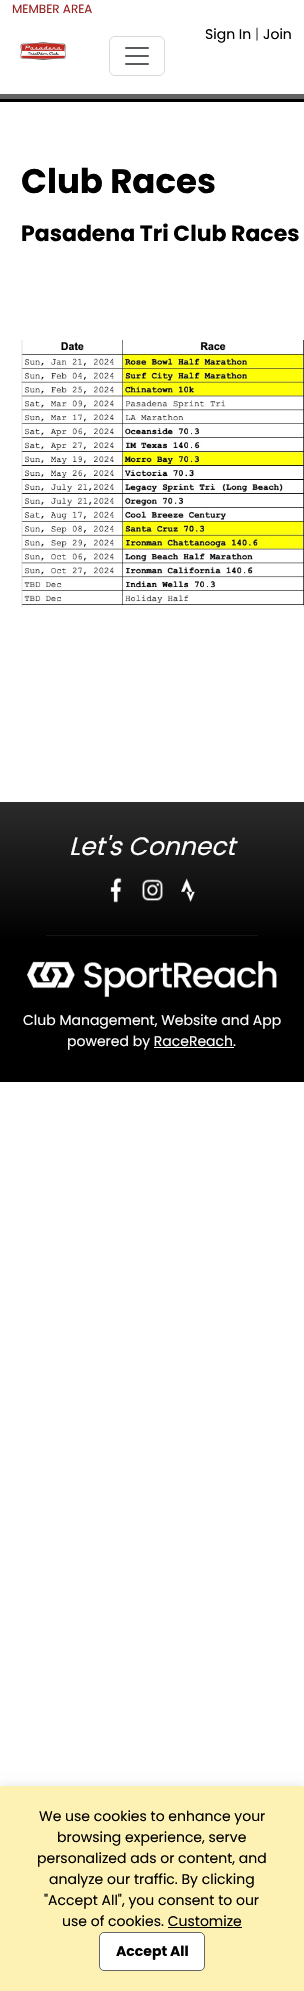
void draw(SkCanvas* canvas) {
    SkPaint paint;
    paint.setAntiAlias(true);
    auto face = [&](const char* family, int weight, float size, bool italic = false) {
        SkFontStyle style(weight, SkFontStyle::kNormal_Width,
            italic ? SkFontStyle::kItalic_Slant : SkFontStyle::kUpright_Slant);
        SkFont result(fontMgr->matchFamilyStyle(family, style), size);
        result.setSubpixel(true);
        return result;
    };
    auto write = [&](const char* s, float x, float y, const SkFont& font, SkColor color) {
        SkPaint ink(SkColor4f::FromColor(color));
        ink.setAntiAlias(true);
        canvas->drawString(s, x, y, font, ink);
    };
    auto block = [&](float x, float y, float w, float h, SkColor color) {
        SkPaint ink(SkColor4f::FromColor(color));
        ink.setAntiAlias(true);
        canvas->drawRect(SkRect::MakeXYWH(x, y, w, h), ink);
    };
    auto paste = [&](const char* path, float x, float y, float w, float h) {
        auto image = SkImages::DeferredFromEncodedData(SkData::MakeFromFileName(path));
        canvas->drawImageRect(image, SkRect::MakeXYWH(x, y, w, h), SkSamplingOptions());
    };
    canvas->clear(SK_ColorWHITE);
    block(0, 94, 304, 5, SkColorSetRGB(99, 99, 99));
    auto kFont1 = face("Poppins", 400, 12);
    write("MEMBER AREA", 12, 13, kFont1, SkColorSetRGB(153, 34, 34));
    paste("pic1.png", 20, 42, 46, 18);
    paint.setStyle(SkPaint::kStroke_Style);
    paint.setStrokeWidth(1);
    paint.setColor(SkColorSetRGB(217, 217, 217));
    canvas->drawRoundRect(SkRect::MakeXYWH(109.5f, 36.5f, 55, 39), 5.5f, 5.5f, paint);
    paste("pic2.png", 125, 47, 24, 18);
    auto kFont2 = face("Poppins", 400, 14);
    write("Sign In", 205, 39, kFont2, SK_ColorBLACK);
    write("|", 255, 39, kFont2, SkColorSetRGB(99, 99, 99));
    write("Join", 263, 39, kFont2, SK_ColorBLACK);
    block(0, 99, 304, 3, SK_ColorBLACK);
    auto kFont3 = face("Poppins", 700, 34);
    write("Club Races", 21, 193, kFont3, SK_ColorBLACK);
    auto kFont4 = face("Poppins", 700, 22);
    write("Pasadena Tri Club Races", 21, 241, kFont4, SK_ColorBLACK);
    paste("pic3.png", 21, 340, 283, 267);
    paint.setStyle(SkPaint::kFill_Style);
    {
        const SkColor colors[] = {SkColorSetRGB(43, 43, 43), SK_ColorBLACK};
        const float stops[] = {0, 0.5f};
        const SkPoint ends[] = {{152, 802}, {152, 1082}};
        paint.setShader(SkGradientShader::MakeLinear(ends, colors, stops, 2, SkTileMode::kClamp));
        paint.setAlpha(255);
    }
    canvas->drawRect(SkRect::MakeXYWH(0, 802, 304, 280), paint);
    auto kFont5 = face("Poppins", 400, 25, true);
    write("Let's Connect", 69, 855, kFont5, SK_ColorWHITE);
    paste("pic4.png", 110, 877, 12, 26);
    paste("pic5.png", 142, 879, 21, 22);
    paste("pic6.png", 181, 878, 14, 25);
    block(46, 935, 212, 1, SkColorSetRGB(21, 21, 21));
    paste("pic7.png", 27, 961, 250, 36);
    write("Club Management, Website and App", 23, 1025, kFont2, SK_ColorWHITE);
    write("powered by RaceReach.", 67, 1046, kFont2, SK_ColorWHITE);
    block(154, 1047, 80, 1, SK_ColorWHITE);
    paint.setShader(nullptr);
    paint.setColor(SkColorSetARGB(26, 0, 0, 0));
    paint.setMaskFilter(SkMaskFilter::MakeBlur(kNormal_SkBlurStyle, 5));
    canvas->drawRect(SkRect::MakeXYWH(0, 1786, 304, 205), paint);
    paint.setMaskFilter(nullptr);
    block(0, 1786, 304, 205, SkColorSetRGB(253, 241, 179));
    write("We use cookies to enhance your", 39, 1821, kFont2, SK_ColorBLACK);
    write("browsing experience, serve", 57, 1842, kFont2, SK_ColorBLACK);
    write("personalized ads or content, and", 37, 1863, kFont2, SK_ColorBLACK);
    write("analyze our traffic. By clicking", 49, 1884, kFont2, SK_ColorBLACK);
    write("\"Accept All\", you consent to our", 44, 1905, kFont2, SK_ColorBLACK);
    write("use of cookies. Customize", 62, 1926, kFont2, SK_ColorBLACK);
    block(168, 1927, 74, 1, SK_ColorBLACK);
    paint.setColor(SK_ColorWHITE);
    canvas->drawRoundRect(SkRect::MakeXYWH(99.5f, 1932.5f, 105, 38), 4.5f, 4.5f, paint);
    paint.setStyle(SkPaint::kStroke_Style);
    paint.setColor(SkColorSetRGB(102, 102, 102));
    canvas->drawRoundRect(SkRect::MakeXYWH(99.5f, 1932.5f, 105, 38), 4.5f, 4.5f, paint);
    auto kFont6 = face("Poppins", 700, 14);
    write("Accept All", 116, 1956, kFont6, SK_ColorBLACK);
}
